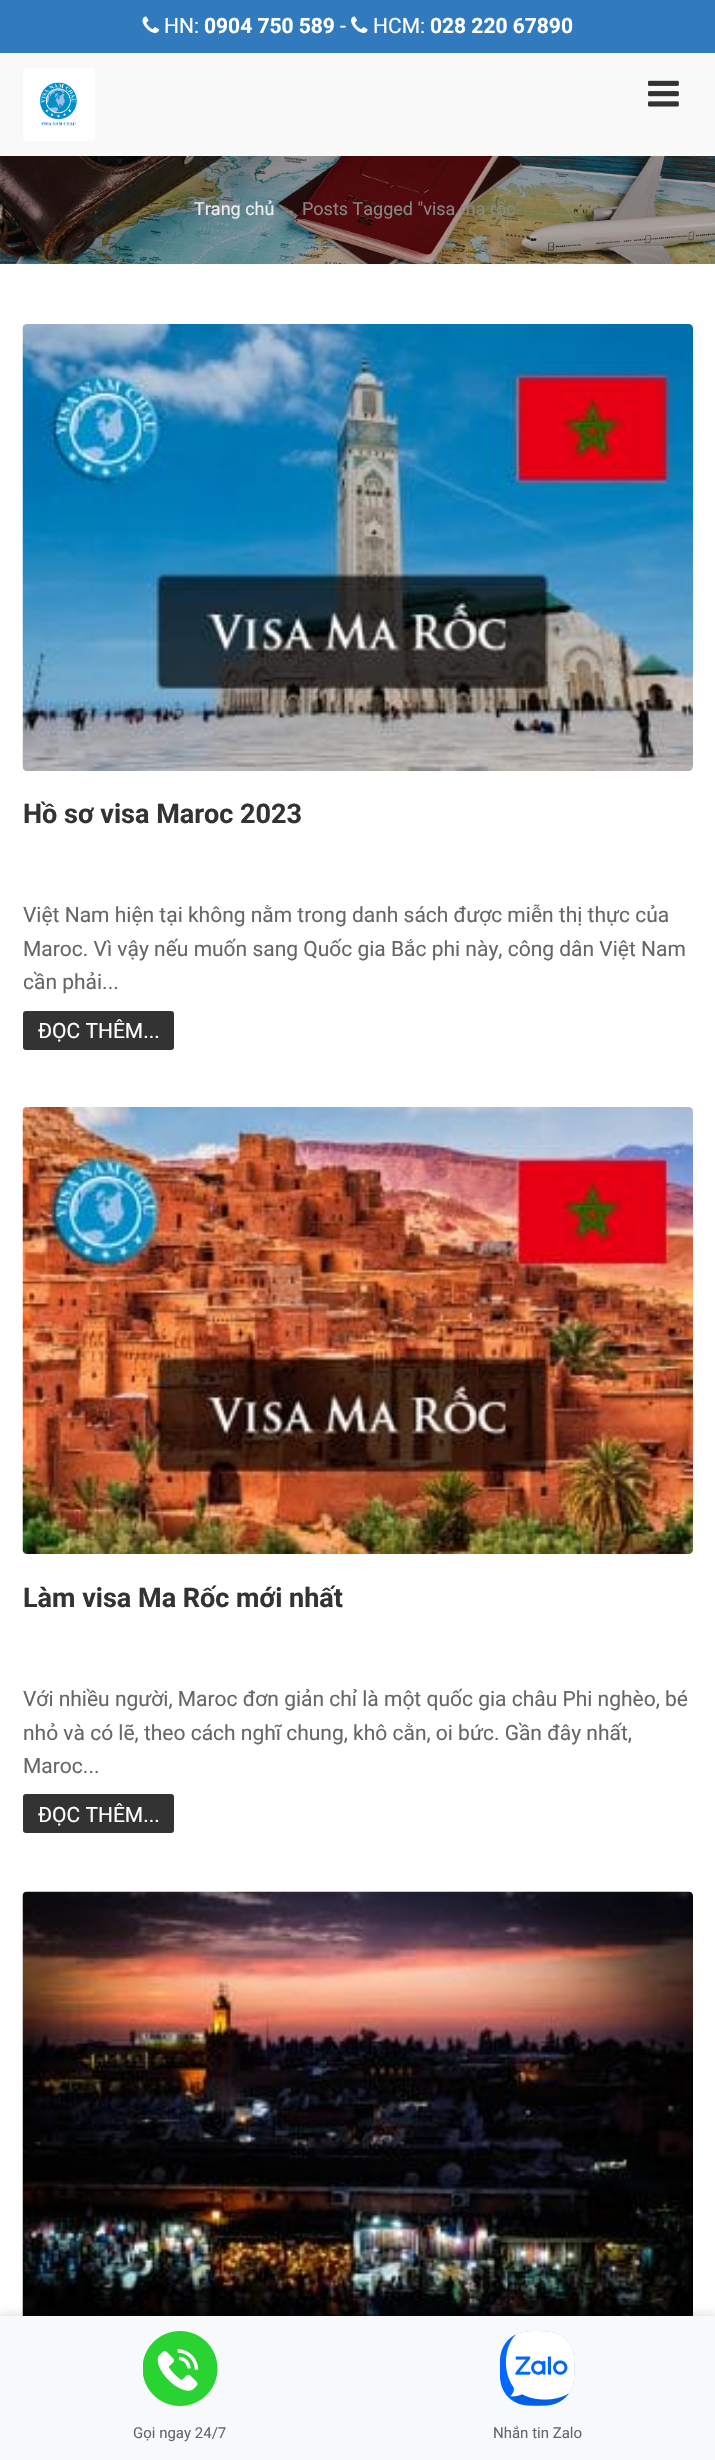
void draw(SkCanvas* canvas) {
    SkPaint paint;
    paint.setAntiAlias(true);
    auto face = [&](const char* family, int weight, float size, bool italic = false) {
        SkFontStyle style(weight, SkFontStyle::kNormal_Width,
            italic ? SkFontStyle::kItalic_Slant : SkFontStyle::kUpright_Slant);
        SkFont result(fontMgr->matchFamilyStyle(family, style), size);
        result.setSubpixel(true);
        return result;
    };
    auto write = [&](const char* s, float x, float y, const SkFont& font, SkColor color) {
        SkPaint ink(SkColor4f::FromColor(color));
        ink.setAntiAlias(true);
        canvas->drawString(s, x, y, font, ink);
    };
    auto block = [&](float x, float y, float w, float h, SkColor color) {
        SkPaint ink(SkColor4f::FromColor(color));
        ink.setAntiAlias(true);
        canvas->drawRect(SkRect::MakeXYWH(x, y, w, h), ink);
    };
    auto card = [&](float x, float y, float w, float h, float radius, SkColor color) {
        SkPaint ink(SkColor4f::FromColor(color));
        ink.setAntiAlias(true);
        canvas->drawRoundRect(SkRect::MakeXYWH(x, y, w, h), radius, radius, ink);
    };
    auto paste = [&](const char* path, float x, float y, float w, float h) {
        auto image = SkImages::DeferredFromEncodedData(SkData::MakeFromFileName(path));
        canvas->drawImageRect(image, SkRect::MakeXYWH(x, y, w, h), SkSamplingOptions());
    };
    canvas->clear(SK_ColorWHITE);
    block(0, 53, 715, 103, SkColorSetRGB(249, 249, 249));
    block(0, 0, 715, 53, SkColorSetRGB(48, 122, 189));
    paste("pic1.png", 142, 16, 17, 17);
    auto kFont1 = face("Roboto", 400, 21);
    write("HN:", 164, 33, kFont1, SK_ColorWHITE);
    auto kFont2 = face("Roboto", 700, 21);
    write("0904 750 589", 204, 33, kFont2, SK_ColorWHITE);
    write("-", 340, 33, kFont1, SK_ColorWHITE);
    paste("pic2.png", 351, 16, 17, 17);
    write("HCM:", 373, 33, kFont1, SK_ColorWHITE);
    write("028 220 67890", 430, 33, kFont2, SK_ColorWHITE);
    card(23, 68, 72, 73, 3, SK_ColorWHITE);
    paste("pic3.png", 648, 80, 31, 27);
    paste("pic4.png", 40, 82, 37, 44);
    paste("pic5.png", 0, 156, 715, 108);
    auto kFont3 = face("Roboto", 400, 18);
    write("Trang chủ", 194, 215, kFont3, SkColorSetRGB(238, 238, 238));
    auto kFont4 = face("Liberation Sans", 400, 18);
    write("→", 279, 215, kFont4, SkColorSetRGB(136, 136, 136));
    write("Posts Tagged \"visa ma rốc\"", 302, 215, kFont3, SkColorSetRGB(136, 136, 136));
    paste("pic6.png", 22, 324, 671, 447);
    auto kFont5 = face("Roboto", 700, 27);
    write("Hồ sơ visa Maroc 2023", 23, 823, kFont5, SkColorSetRGB(51, 51, 51));
    write("Việt Nam hiện tại không nằm trong danh sách được miễn thị thực của", 23, 922, kFont1, SkColorSetRGB(102, 102, 102));
    write("Maroc. Vì vậy nếu muốn sang Quốc gia Bắc phi này, công dân Việt Nam", 23, 956, kFont1, SkColorSetRGB(102, 102, 102));
    write("cần phải...", 23, 989, kFont1, SkColorSetRGB(102, 102, 102));
    card(23, 1011, 151, 39, 3, SkColorSetRGB(51, 51, 51));
    write("ĐỌC THÊM...", 38, 1038, kFont1, SK_ColorWHITE);
    paste("pic7.png", 22, 1107, 671, 447);
    write("Làm visa Ma Rốc mới nhất", 23, 1607, kFont5, SkColorSetRGB(51, 51, 51));
    write("Với nhiều người, Maroc đơn giản chỉ là một quốc gia châu Phi nghèo, bé", 23, 1706, kFont1, SkColorSetRGB(102, 102, 102));
    write("nhỏ và có lẽ, theo cách nghĩ chung, khô cằn, oi bức. Gần đây nhất,", 23, 1740, kFont1, SkColorSetRGB(102, 102, 102));
    write("Maroc...", 23, 1773, kFont1, SkColorSetRGB(102, 102, 102));
    card(23, 1794, 151, 39, 3, SkColorSetRGB(51, 51, 51));
    write("ĐỌC THÊM...", 38, 1822, kFont1, SK_ColorWHITE);
    paste("pic8.png", 22, 1891, 671, 425);
    paint.setColor(SkColorSetARGB(26, 0, 0, 0));
    paint.setMaskFilter(SkMaskFilter::MakeBlur(kNormal_SkBlurStyle, 4));
    canvas->drawRect(SkRect::MakeXYWH(0, 2313, 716, 144), paint);
    paint.setMaskFilter(nullptr);
    block(0, 2316, 715, 144, SkColorSetRGB(248, 249, 250));
    paste("pic9.png", 143, 2331, 75, 75);
    auto kFont6 = face("Roboto", 400, 15);
    write("Gọi ngay 24/7", 133, 2438, kFont6, SkColorSetRGB(102, 102, 102));
    paste("pic10.png", 500, 2331, 75, 75);
    write("Nhắn tin Zalo", 493, 2438, kFont6, SkColorSetRGB(102, 102, 102));
}
